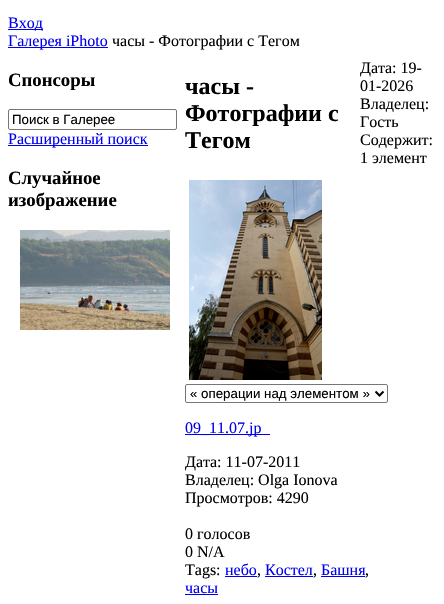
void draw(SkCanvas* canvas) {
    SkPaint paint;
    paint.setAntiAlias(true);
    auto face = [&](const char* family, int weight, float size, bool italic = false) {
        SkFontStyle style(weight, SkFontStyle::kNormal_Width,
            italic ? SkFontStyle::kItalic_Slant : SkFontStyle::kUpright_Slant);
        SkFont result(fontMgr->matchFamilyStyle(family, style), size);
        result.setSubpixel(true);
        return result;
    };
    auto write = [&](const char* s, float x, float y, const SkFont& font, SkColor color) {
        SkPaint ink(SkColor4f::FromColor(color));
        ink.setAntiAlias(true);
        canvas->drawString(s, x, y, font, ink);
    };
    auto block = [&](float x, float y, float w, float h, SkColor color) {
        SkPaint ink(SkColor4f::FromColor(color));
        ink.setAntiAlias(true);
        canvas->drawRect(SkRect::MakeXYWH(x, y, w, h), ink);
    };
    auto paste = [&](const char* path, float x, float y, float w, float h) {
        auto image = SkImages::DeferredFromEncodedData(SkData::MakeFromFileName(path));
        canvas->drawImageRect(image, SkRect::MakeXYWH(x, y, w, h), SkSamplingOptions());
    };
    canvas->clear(SK_ColorWHITE);
    block(8, 29, 35, 1, SkColorSetRGB(0, 0, 238));
    auto kFont1 = face("Liberation Serif", 400, 16);
    write("Вход", 8, 28, kFont1, SkColorSetRGB(0, 0, 238));
    block(8, 47, 100, 1, SkColorSetRGB(0, 0, 238));
    write("Галерея iPhoto", 8, 46, kFont1, SkColorSetRGB(0, 0, 238));
    write("часы - Фотографии с Тегом", 112, 46, kFont1, SK_ColorBLACK);
    auto kFont2 = face("Liberation Serif", 700, 18.75f);
    write("Спонсоры", 8, 86, kFont2, SK_ColorBLACK);
    paint.setStyle(SkPaint::kStroke_Style);
    paint.setStrokeWidth(1);
    paint.setColor(SkColorSetRGB(118, 118, 118));
    canvas->drawRoundRect(SkRect::MakeXYWH(8.5f, 109.5f, 168, 20), 1.5f, 1.5f, paint);
    auto kFont3 = face("Liberation Sans", 400, 13.3f);
    write("Поиск в Галерее", 12, 124, kFont3, SK_ColorBLACK);
    block(8, 145, 140, 1, SkColorSetRGB(0, 0, 238));
    write("Расширенный поиск", 8, 144, kFont1, SkColorSetRGB(0, 0, 238));
    write("Случайное", 8, 184, kFont2, SK_ColorBLACK);
    write("изображение", 8, 206, kFont2, SK_ColorBLACK);
    paste("pic1.png", 20, 230, 150, 100);
    auto kFont4 = face("Liberation Serif", 700, 24);
    write("часы -", 185, 94, kFont4, SK_ColorBLACK);
    write("Фотографии с", 185, 121, kFont4, SK_ColorBLACK);
    write("Тегом", 185, 148, kFont4, SK_ColorBLACK);
    write("Дата: 19-", 360, 73, kFont1, SK_ColorBLACK);
    write("01-2026", 360, 91, kFont1, SK_ColorBLACK);
    write("Владелец:", 360, 109, kFont1, SK_ColorBLACK);
    write("Гость", 360, 127, kFont1, SK_ColorBLACK);
    write("Содержит:", 360, 145, kFont1, SK_ColorBLACK);
    write("1 элемент", 360, 163, kFont1, SK_ColorBLACK);
    paste("pic2.png", 189, 180, 133, 200);
    canvas->drawRoundRect(SkRect::MakeXYWH(185.5f, 384.5f, 202, 18), 1.5f, 1.5f, paint);
    paint.setStrokeWidth(2);
    paint.setColor(SK_ColorBLACK);
    canvas->drawPath(SkPathBuilder().moveTo(375.5f, 391.5f).lineTo(379.5f, 395.5f).lineTo(383.5f, 391.5f).detach(), paint);
    write("« операции над элементом »", 190, 398, kFont3, SK_ColorBLACK);
    block(185, 434, 85, 1, SkColorSetRGB(0, 0, 238));
    write("09_11.07.jp", 185, 433, kFont1, SkColorSetRGB(0, 0, 238));
    write("Дата: 11-07-2011", 185, 467, kFont1, SK_ColorBLACK);
    write("Владелец: Olga Ionova", 185, 485, kFont1, SK_ColorBLACK);
    write("Просмотров: 4290", 185, 503, kFont1, SK_ColorBLACK);
    write("0 голосов", 185, 539, kFont1, SK_ColorBLACK);
    write("0 N/A", 185, 557, kFont1, SK_ColorBLACK);
    write("Tags:", 185, 575, kFont1, SK_ColorBLACK);
    write("небо", 225, 575, kFont1, SkColorSetRGB(0, 0, 238));
    block(225, 576, 32, 1, SkColorSetRGB(0, 0, 238));
    write(",", 257, 575, kFont1, SK_ColorBLACK);
    write("Костел", 265, 575, kFont1, SkColorSetRGB(0, 0, 238));
    block(265, 576, 48, 1, SkColorSetRGB(0, 0, 238));
    write(",", 313, 575, kFont1, SK_ColorBLACK);
    write("Башня", 321, 575, kFont1, SkColorSetRGB(0, 0, 238));
    block(321, 576, 44, 1, SkColorSetRGB(0, 0, 238));
    write(",", 365, 575, kFont1, SK_ColorBLACK);
    write("часы", 185, 593, kFont1, SkColorSetRGB(0, 0, 238));
    block(185, 594, 33, 1, SkColorSetRGB(0, 0, 238));
}
